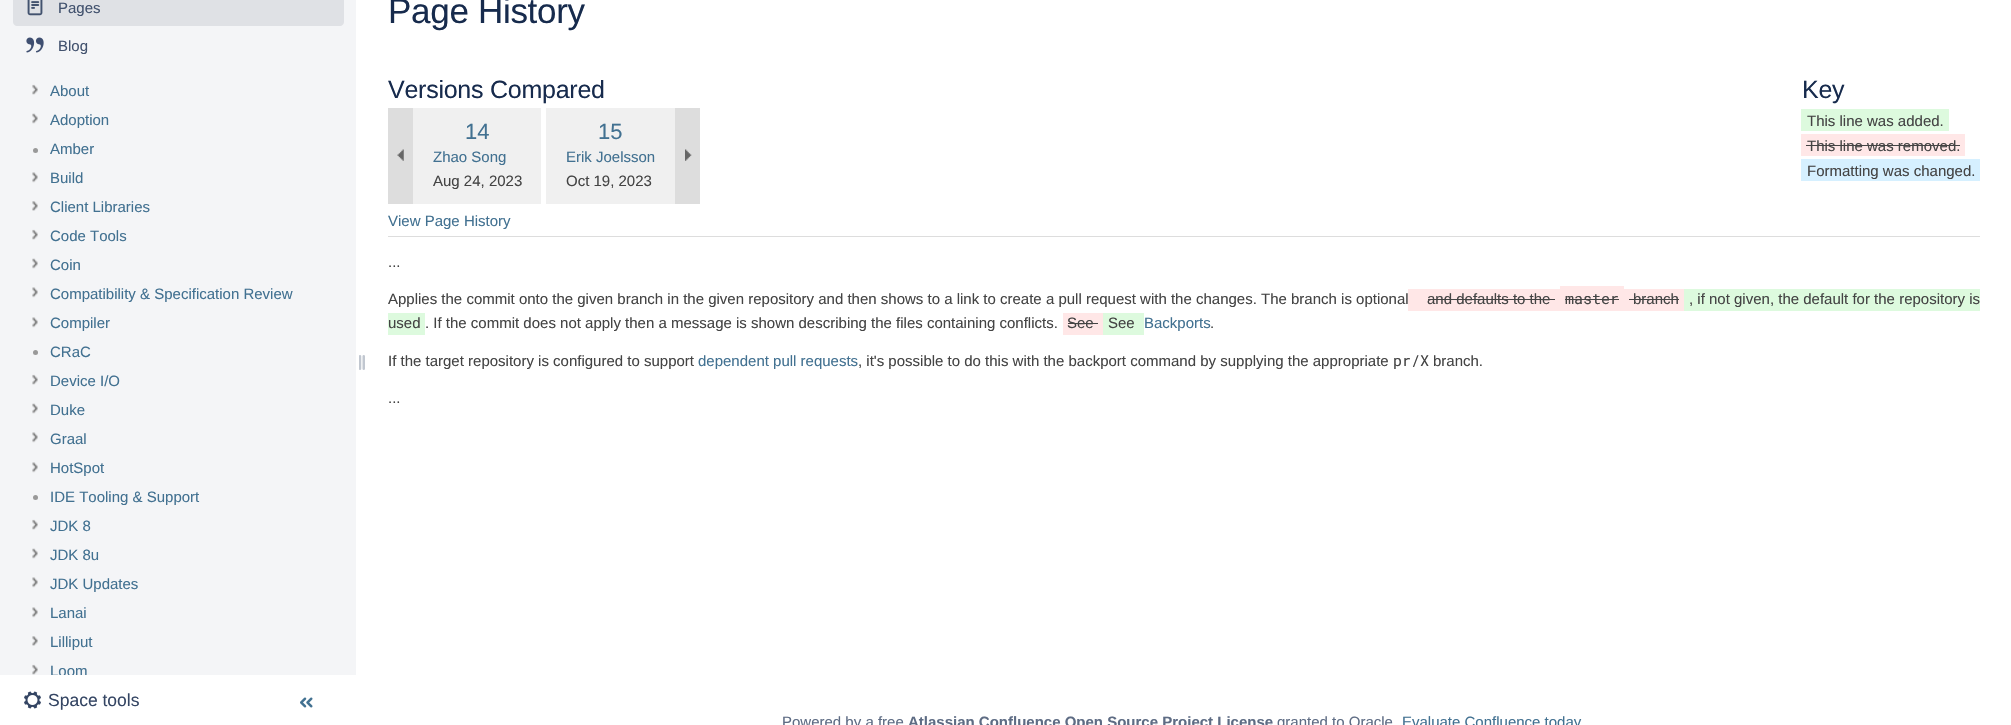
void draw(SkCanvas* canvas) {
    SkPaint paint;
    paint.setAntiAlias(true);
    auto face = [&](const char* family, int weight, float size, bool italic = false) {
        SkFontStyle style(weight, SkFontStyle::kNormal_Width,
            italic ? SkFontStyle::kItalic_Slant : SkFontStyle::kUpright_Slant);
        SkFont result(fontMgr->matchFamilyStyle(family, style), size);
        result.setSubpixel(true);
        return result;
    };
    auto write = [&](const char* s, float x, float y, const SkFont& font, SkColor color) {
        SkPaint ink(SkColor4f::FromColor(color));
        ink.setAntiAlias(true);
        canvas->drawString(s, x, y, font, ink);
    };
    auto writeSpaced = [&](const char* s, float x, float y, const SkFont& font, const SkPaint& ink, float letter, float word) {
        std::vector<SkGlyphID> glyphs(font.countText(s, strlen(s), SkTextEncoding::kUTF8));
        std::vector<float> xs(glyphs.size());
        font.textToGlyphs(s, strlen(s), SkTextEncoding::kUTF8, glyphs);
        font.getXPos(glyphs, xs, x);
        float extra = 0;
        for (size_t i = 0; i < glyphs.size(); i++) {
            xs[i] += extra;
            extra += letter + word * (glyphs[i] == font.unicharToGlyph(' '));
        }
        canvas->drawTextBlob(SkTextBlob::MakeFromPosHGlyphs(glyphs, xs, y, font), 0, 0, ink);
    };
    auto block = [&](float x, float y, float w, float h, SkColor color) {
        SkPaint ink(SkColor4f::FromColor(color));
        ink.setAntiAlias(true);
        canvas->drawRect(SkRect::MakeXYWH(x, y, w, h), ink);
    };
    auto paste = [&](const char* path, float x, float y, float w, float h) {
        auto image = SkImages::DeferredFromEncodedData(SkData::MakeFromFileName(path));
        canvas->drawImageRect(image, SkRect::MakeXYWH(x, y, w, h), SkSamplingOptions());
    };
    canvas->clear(SK_ColorWHITE);
    block(0, 0, 356, 675, SkColorSetRGB(244, 245, 247));
    paint.setColor(SkColorSetRGB(223, 225, 229));
    canvas->drawPath(SkPathBuilder().moveTo(13, 0).lineTo(344, 0).lineTo(344, 22).cubicTo(344, 24, 342, 26, 340, 26).lineTo(17, 26).cubicTo(15, 26, 13, 24, 13, 22).close().detach(), paint);
    paste("pic1.png", 27, 0, 16, 16);
    auto kFont1 = face("Liberation Sans", 400, 15);
    write("Pages", 58, 13, kFont1, SkColorSetRGB(66, 82, 110));
    paste("pic2.png", 26, 37, 18, 16);
    write("Blog", 58, 51, kFont1, SkColorSetRGB(66, 82, 110));
    paste("pic3.png", 32, 84, 6, 11);
    write("About", 50, 96, kFont1, SkColorSetRGB(66, 113, 145));
    paste("pic4.png", 32, 113, 6, 11);
    write("Adoption", 50, 125, kFont1, SkColorSetRGB(66, 113, 145));
    paint.setColor(SkColorSetRGB(153, 153, 153));
    canvas->drawCircle(35.5f, 150.5f, 2.5f, paint);
    write("Amber", 50, 154, kFont1, SkColorSetRGB(66, 113, 145));
    paste("pic5.png", 32, 172, 6, 11);
    write("Build", 50, 183, kFont1, SkColorSetRGB(66, 113, 145));
    paste("pic6.png", 32, 201, 6, 10);
    write("Client Libraries", 50, 212, kFont1, SkColorSetRGB(66, 113, 145));
    paste("pic3.png", 32, 229, 6, 11);
    write("Code Tools", 50, 241, kFont1, SkColorSetRGB(66, 113, 145));
    paste("pic4.png", 32, 258, 6, 11);
    write("Coin", 50, 270, kFont1, SkColorSetRGB(66, 113, 145));
    paste("pic5.png", 32, 287, 6, 11);
    write("Compatibility & Specification Review", 50, 299, kFont1, SkColorSetRGB(66, 113, 145));
    paste("pic5.png", 32, 317, 6, 11);
    write("Compiler", 50, 328, kFont1, SkColorSetRGB(66, 113, 145));
    canvas->drawCircle(35.5f, 352.5f, 2.5f, paint);
    write("CRaC", 50, 357, kFont1, SkColorSetRGB(66, 113, 145));
    paste("pic3.png", 32, 374, 6, 11);
    write("Device I/O", 50, 386, kFont1, SkColorSetRGB(66, 113, 145));
    paste("pic4.png", 32, 403, 6, 11);
    write("Duke", 50, 415, kFont1, SkColorSetRGB(66, 113, 145));
    paste("pic5.png", 32, 432, 6, 11);
    write("Graal", 50, 444, kFont1, SkColorSetRGB(66, 113, 145));
    paste("pic5.png", 32, 462, 6, 11);
    write("HotSpot", 50, 473, kFont1, SkColorSetRGB(66, 113, 145));
    canvas->drawCircle(35.5f, 497.5f, 2.5f, paint);
    write("IDE Tooling & Support", 50, 502, kFont1, SkColorSetRGB(66, 113, 145));
    paste("pic3.png", 32, 519, 6, 11);
    write("JDK 8", 50, 531, kFont1, SkColorSetRGB(66, 113, 145));
    paste("pic4.png", 32, 548, 6, 11);
    write("JDK 8u", 50, 560, kFont1, SkColorSetRGB(66, 113, 145));
    paste("pic5.png", 32, 577, 6, 11);
    write("JDK Updates", 50, 589, kFont1, SkColorSetRGB(66, 113, 145));
    paste("pic5.png", 32, 607, 6, 11);
    write("Lanai", 50, 618, kFont1, SkColorSetRGB(66, 113, 145));
    paste("pic6.png", 32, 636, 6, 10);
    write("Lilliput", 50, 647, kFont1, SkColorSetRGB(66, 113, 145));
    paste("pic3.png", 32, 664, 6, 11);
    canvas->save();
    canvas->clipRect(SkRect::MakeXYWH(25, 658, 319, 17));
    write("Loom", 50, 676, kFont1, SkColorSetRGB(66, 113, 145));
    canvas->restore();
    paste("pic7.png", 359, 355, 6, 15);
    paste("pic8.png", 24, 691, 17, 18);
    auto kFont2 = face("Liberation Sans", 400, 17.5f);
    write("Space tools", 48, 706, kFont2, SkColorSetRGB(52, 69, 99));
    paste("pic9.png", 300, 697, 13, 11);
    auto kFont3 = face("Liberation Sans", 400, 35);
    paint.setColor(SkColorSetRGB(23, 43, 77));
    writeSpaced("Page History", 388, 23, kFont3, paint, -0.3f, 0);
    block(388, 236, 1592, 1, SkColorSetRGB(221, 221, 221));
    auto kFont4 = face("Liberation Sans", 400, 25);
    writeSpaced("Versions Compared", 388, 98, kFont4, paint, -0.25f, 0);
    writeSpaced("Key", 1802, 98, kFont4, paint, -0.25f, 0);
    block(1801, 109, 148, 22, SkColorSetRGB(221, 250, 222));
    write("This line was added.", 1807, 126, kFont1, SkColorSetRGB(68, 68, 68));
    block(1801, 134, 164, 22, SkColorSetRGB(255, 231, 231));
    write("This line was removed.", 1807, 151, kFont1, SkColorSetRGB(68, 68, 68));
    block(1806, 145, 154, 1, SkColorSetRGB(68, 68, 68));
    block(1801, 159, 179, 22, SkColorSetRGB(214, 240, 255));
    write("Formatting was changed.", 1807, 176, kFont1, SkColorSetRGB(68, 68, 68));
    block(413, 108, 128, 96, SkColorSetRGB(240, 240, 240));
    auto kFont5 = face("Liberation Sans", 400, 22);
    write("14", 465, 139, kFont5, SkColorSetRGB(66, 113, 145));
    write("Zhao Song", 433, 162, kFont1, SkColorSetRGB(66, 113, 145));
    write("Aug 24, 2023", 433, 186, kFont1, SkColorSetRGB(68, 68, 68));
    block(546, 108, 129, 96, SkColorSetRGB(240, 240, 240));
    write("15", 598, 139, kFont5, SkColorSetRGB(66, 113, 145));
    write("Erik Joelsson", 566, 162, kFont1, SkColorSetRGB(66, 113, 145));
    write("Oct 19, 2023", 566, 186, kFont1, SkColorSetRGB(68, 68, 68));
    block(388, 108, 25, 96, SkColorSetRGB(221, 221, 221));
    paste("pic10.png", 397, 149, 7, 12);
    block(675, 108, 25, 96, SkColorSetRGB(221, 221, 221));
    paste("pic11.png", 685, 149, 7, 12);
    write("View Page History", 388, 226, kFont1, SkColorSetRGB(66, 113, 145));
    write("...", 388, 267, kFont1, SkColorSetRGB(68, 68, 68));
    write("Applies the commit onto the given branch in the given repository and then shows to a link to create a pull request with the changes. The branch is optional", 388, 304, kFont1, SkColorSetRGB(68, 68, 68));
    block(1408, 289, 152, 22, SkColorSetRGB(255, 231, 231));
    write("and defaults to the", 1427, 304, kFont1, SkColorSetRGB(68, 68, 68));
    block(1428, 299, 127, 1, SkColorSetRGB(68, 68, 68));
    block(1560, 286, 64, 25, SkColorSetRGB(255, 231, 231));
    auto kFont6 = face("Roboto Mono", 400, 15);
    write("master", 1565, 304, kFont6, SkColorSetRGB(68, 68, 68));
    block(1565, 299, 54, 1, SkColorSetRGB(68, 68, 68));
    block(1624, 289, 60, 22, SkColorSetRGB(255, 231, 231));
    write("branch", 1633, 304, kFont1, SkColorSetRGB(68, 68, 68));
    block(1629, 299, 50, 1, SkColorSetRGB(68, 68, 68));
    block(1684, 289, 296, 22, SkColorSetRGB(221, 250, 222));
    write(", if not given, the default for the repository is", 1689, 304, kFont1, SkColorSetRGB(68, 68, 68));
    block(388, 313, 37, 22, SkColorSetRGB(221, 250, 222));
    write("used", 388, 328, kFont1, SkColorSetRGB(68, 68, 68));
    write(". If the commit does not apply then a message is shown describing the files containing conflicts.", 425, 328, kFont1, SkColorSetRGB(68, 68, 68));
    block(1063, 313, 40, 22, SkColorSetRGB(255, 231, 231));
    write("See", 1067, 328, kFont1, SkColorSetRGB(68, 68, 68));
    block(1068, 323, 30, 1, SkColorSetRGB(68, 68, 68));
    block(1103, 313, 41, 22, SkColorSetRGB(221, 250, 222));
    write("See", 1108, 328, kFont1, SkColorSetRGB(68, 68, 68));
    write("Backports", 1144, 328, kFont1, SkColorSetRGB(66, 113, 145));
    write(".", 1210, 328, kFont1, SkColorSetRGB(68, 68, 68));
    write("If the target repository is configured to support", 388, 366, kFont1, SkColorSetRGB(68, 68, 68));
    write("dependent pull requests", 698, 366, kFont1, SkColorSetRGB(66, 113, 145));
    write(", it's possible to do this with the backport command by supplying the appropriate", 858, 366, kFont1, SkColorSetRGB(68, 68, 68));
    write("pr/X", 1393, 366, kFont6, SkColorSetRGB(68, 68, 68));
    write("branch.", 1433, 366, kFont1, SkColorSetRGB(68, 68, 68));
    write("...", 388, 403, kFont1, SkColorSetRGB(68, 68, 68));
    write("Powered by a free", 782, 727, kFont1, SkColorSetRGB(94, 108, 132));
    auto kFont7 = face("Liberation Sans", 700, 15);
    write("Atlassian Confluence Open Source Project License", 908, 727, kFont7, SkColorSetRGB(94, 108, 132));
    write("granted to Oracle", 1277, 727, kFont1, SkColorSetRGB(94, 108, 132));
    write("Evaluate Confluence today", 1402, 727, kFont1, SkColorSetRGB(66, 113, 145));
}
